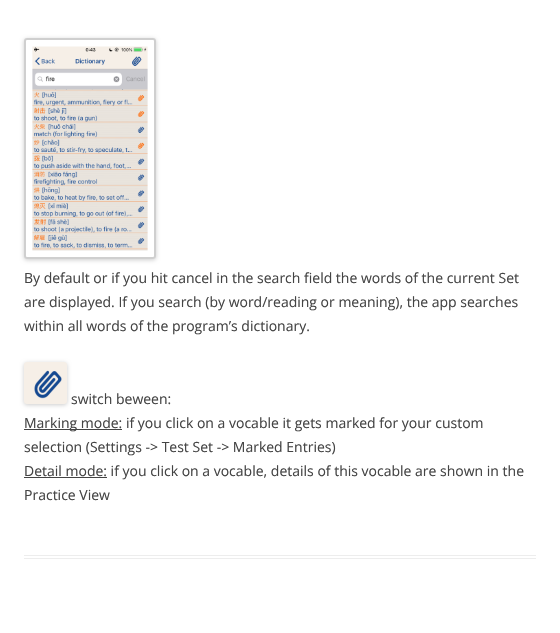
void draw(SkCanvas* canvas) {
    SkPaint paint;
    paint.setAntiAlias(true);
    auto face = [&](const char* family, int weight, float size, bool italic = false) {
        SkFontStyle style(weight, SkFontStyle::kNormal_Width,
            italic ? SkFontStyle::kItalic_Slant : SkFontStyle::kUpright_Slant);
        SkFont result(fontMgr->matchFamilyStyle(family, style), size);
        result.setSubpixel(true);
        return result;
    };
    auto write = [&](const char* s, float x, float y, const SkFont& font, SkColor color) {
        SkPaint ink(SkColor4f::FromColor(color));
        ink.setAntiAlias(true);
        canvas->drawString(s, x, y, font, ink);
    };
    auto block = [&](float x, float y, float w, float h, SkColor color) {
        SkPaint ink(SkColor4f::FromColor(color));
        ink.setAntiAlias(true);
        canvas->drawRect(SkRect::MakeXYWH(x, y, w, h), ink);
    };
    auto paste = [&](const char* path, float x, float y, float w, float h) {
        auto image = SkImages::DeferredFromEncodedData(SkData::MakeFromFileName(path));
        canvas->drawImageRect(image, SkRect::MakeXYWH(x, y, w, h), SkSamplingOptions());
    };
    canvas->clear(SK_ColorWHITE);
    block(24, 555, 512, 1, SkColorSetRGB(237, 237, 237));
    block(24, 558, 512, 1, SkColorSetRGB(237, 237, 237));
    canvas->save();
    canvas->clipPath(SkPathBuilder(SkPathFillType::kEvenOdd).moveTo(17, 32).lineTo(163, 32).lineTo(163, 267).lineTo(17, 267).close().moveTo(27, 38).lineTo(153, 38).cubicTo(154.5f, 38, 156, 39.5f, 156, 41).lineTo(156, 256).cubicTo(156, 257.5f, 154.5f, 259, 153, 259).lineTo(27, 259).cubicTo(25.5f, 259, 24, 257.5f, 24, 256).lineTo(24, 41).cubicTo(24, 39.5f, 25.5f, 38, 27, 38).close().detach(), true);
    paint.setColor(SkColorSetARGB(51, 0, 0, 0));
    paint.setMaskFilter(SkMaskFilter::MakeBlur(kNormal_SkBlurStyle, 2));
    canvas->drawRoundRect(SkRect::MakeXYWH(24, 39, 132, 221), 3, 3, paint);
    paint.setMaskFilter(nullptr);
    canvas->restore();
    paint.setStyle(SkPaint::kStroke_Style);
    paint.setStrokeWidth(2);
    paint.setColor(SkColorSetRGB(207, 207, 207));
    canvas->drawRoundRect(SkRect::MakeXYWH(25, 39, 130, 219), 2, 2, paint);
    paste("pic1.png", 32, 46, 116, 205);
    auto kFont1 = face("Open Sans", 400, 14);
    write("By default or if you hit cancel in the search field the words of the current Set", 24, 283, kFont1, SkColorSetRGB(68, 68, 68));
    write("are displayed. If you search (by word/reading or meaning), the app searches", 24, 307, kFont1, SkColorSetRGB(68, 68, 68));
    write("within all words of the program’s dictionary.", 24, 331, kFont1, SkColorSetRGB(68, 68, 68));
    paint.setStyle(SkPaint::kFill_Style);
    paint.setColor(SkColorSetARGB(51, 0, 0, 0));
    paint.setMaskFilter(SkMaskFilter::MakeBlur(kNormal_SkBlurStyle, 2));
    canvas->drawRoundRect(SkRect::MakeXYWH(24, 363, 43, 42), 3, 3, paint);
    paint.setMaskFilter(nullptr);
    paste("pic2.png", 24, 362, 43, 42);
    write("switch beween:", 71, 404, kFont1, SkColorSetRGB(68, 68, 68));
    block(24, 429, 98, 1, SkColorSetRGB(68, 68, 68));
    write("Marking mode: if you click on a vocable it gets marked for your custom", 24, 428, kFont1, SkColorSetRGB(68, 68, 68));
    write("selection (Settings -> Test Set -> Marked Entries)", 24, 452, kFont1, SkColorSetRGB(68, 68, 68));
    block(24, 477, 83, 1, SkColorSetRGB(68, 68, 68));
    write("Detail mode: if you click on a vocable, details of this vocable are shown in the", 24, 476, kFont1, SkColorSetRGB(68, 68, 68));
    write("Practice View", 24, 500, kFont1, SkColorSetRGB(68, 68, 68));
}
